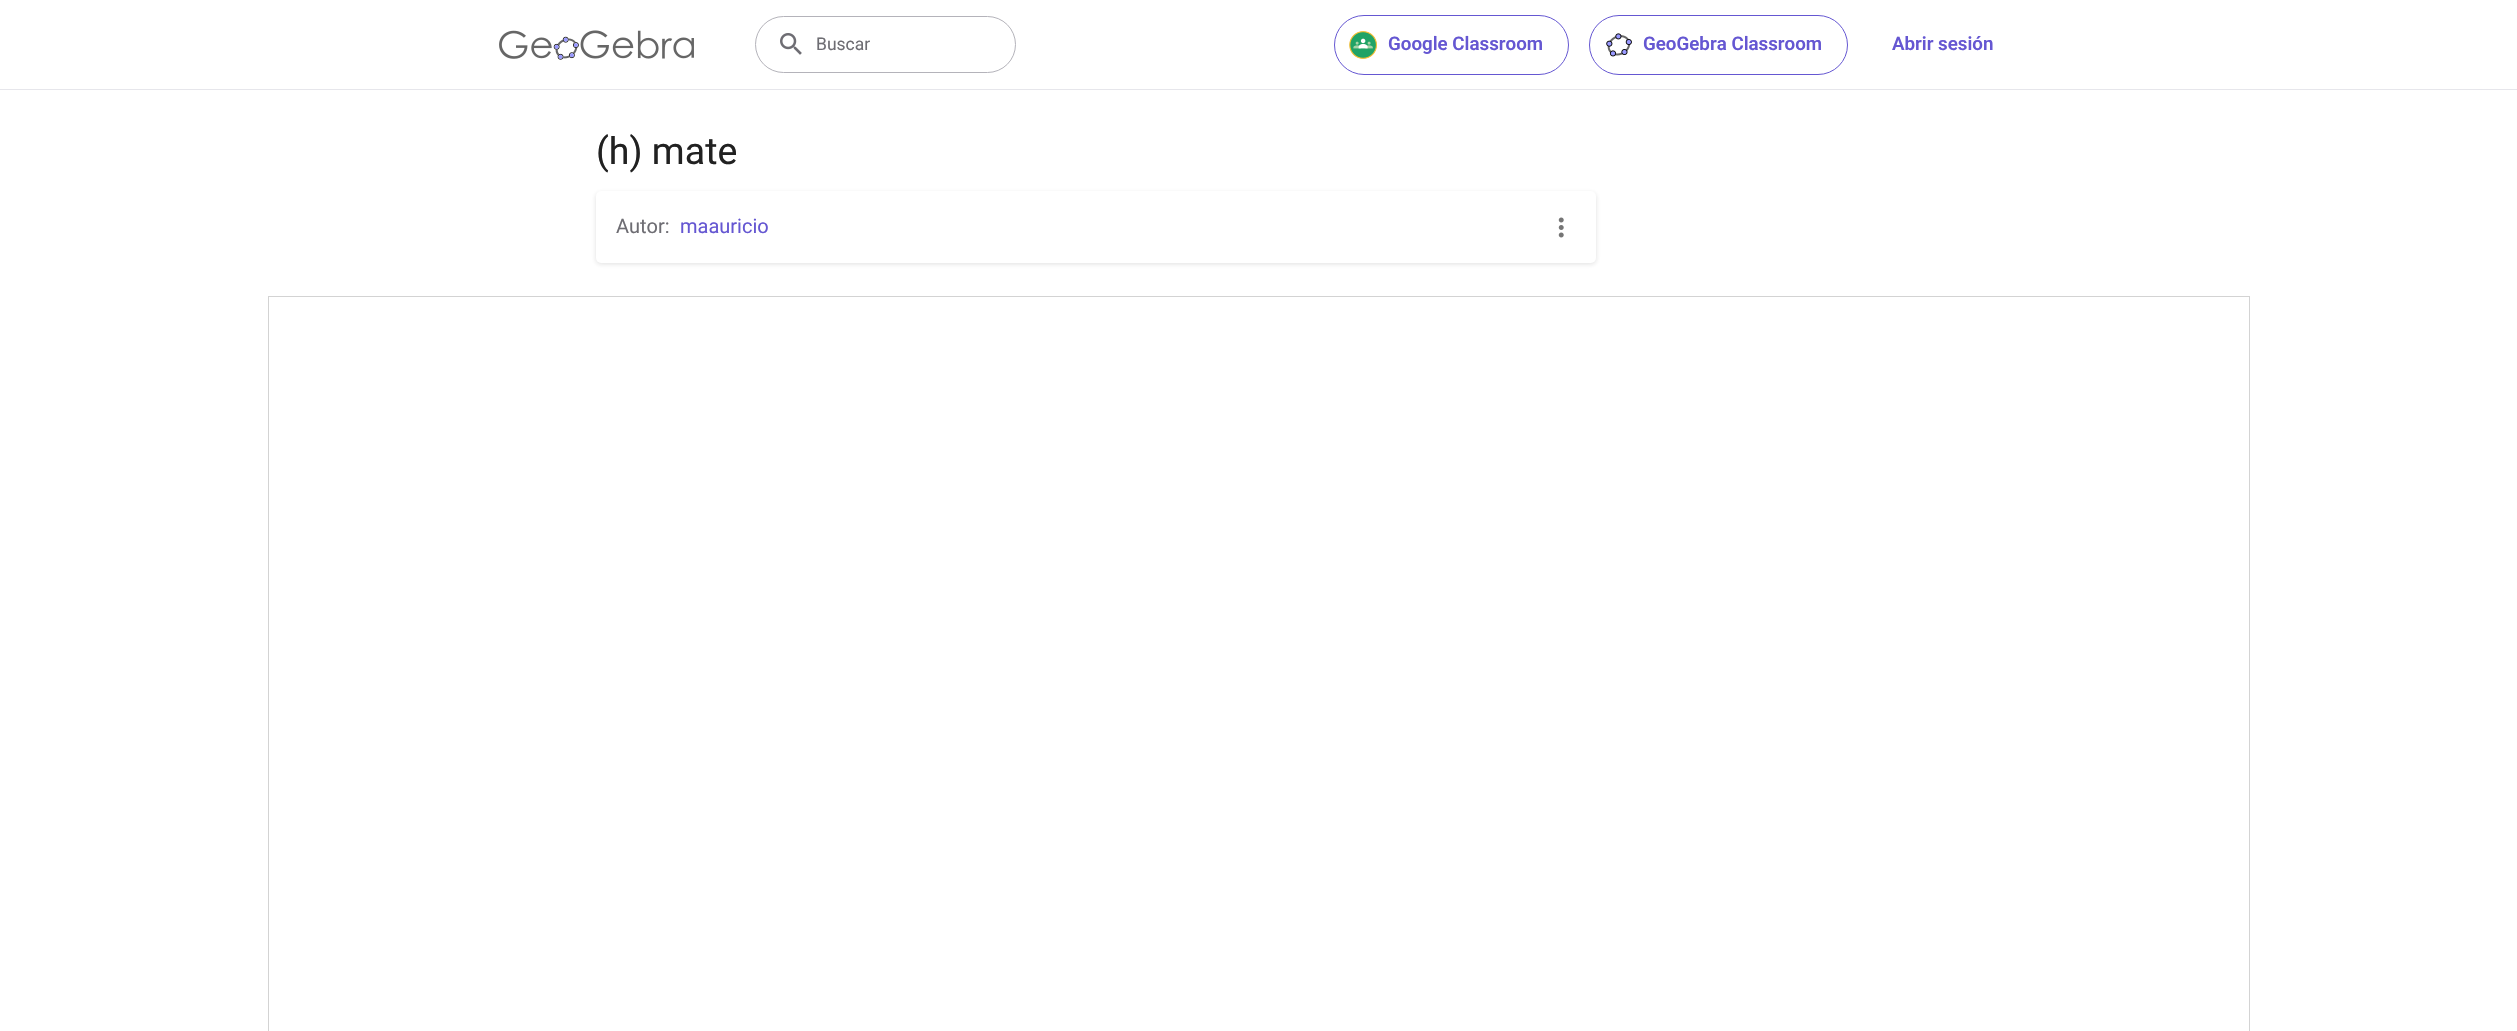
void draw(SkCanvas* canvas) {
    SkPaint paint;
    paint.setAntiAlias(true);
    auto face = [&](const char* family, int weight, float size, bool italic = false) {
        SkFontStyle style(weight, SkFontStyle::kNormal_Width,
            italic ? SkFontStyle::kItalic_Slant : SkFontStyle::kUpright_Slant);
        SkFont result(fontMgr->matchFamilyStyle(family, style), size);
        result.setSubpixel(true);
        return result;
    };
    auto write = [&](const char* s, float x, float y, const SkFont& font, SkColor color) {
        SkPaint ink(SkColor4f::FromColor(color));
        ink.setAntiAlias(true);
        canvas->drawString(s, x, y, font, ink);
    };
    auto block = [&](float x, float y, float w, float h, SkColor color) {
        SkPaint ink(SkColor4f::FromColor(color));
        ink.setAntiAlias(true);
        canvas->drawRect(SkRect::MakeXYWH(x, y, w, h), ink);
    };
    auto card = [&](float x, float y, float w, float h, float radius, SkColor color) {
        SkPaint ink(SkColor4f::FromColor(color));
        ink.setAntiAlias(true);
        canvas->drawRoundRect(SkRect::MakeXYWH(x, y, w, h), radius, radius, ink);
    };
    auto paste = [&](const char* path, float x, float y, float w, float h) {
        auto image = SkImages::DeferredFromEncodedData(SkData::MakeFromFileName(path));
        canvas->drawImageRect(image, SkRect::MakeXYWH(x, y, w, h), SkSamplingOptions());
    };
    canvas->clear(SK_ColorWHITE);
    block(0, 89, 2517, 1, SkColorSetRGB(230, 230, 235));
    paste("pic1.png", 499, 30, 195, 30);
    paint.setStyle(SkPaint::kStroke_Style);
    paint.setStrokeWidth(1);
    paint.setColor(SkColorSetRGB(180, 179, 186));
    canvas->drawRoundRect(SkRect::MakeXYWH(755.5f, 16.5f, 260, 56), 28, 28, paint);
    paste("pic2.png", 780, 33, 22, 22);
    auto kFont1 = face("Roboto", 400, 17.5f);
    write("Buscar", 816, 50, kFont1, SkColorSetRGB(110, 109, 115));
    paint.setColor(SkColorSetRGB(101, 87, 210));
    canvas->drawRoundRect(SkRect::MakeXYWH(1334.5f, 15.5f, 234, 59), 29.5f, 29.5f, paint);
    paste("pic3.png", 1349, 31, 28, 28);
    auto kFont2 = face("Roboto", 600, 18.75f);
    write("Google Classroom", 1388, 50, kFont2, SkColorSetRGB(101, 87, 210));
    canvas->drawRoundRect(SkRect::MakeXYWH(1589.5f, 15.5f, 258, 59), 29.5f, 29.5f, paint);
    paste("pic4.png", 1606, 33, 26, 24);
    write("GeoGebra Classroom", 1643, 50, kFont2, SkColorSetRGB(101, 87, 210));
    write("Abrir sesión", 1892, 50, kFont2, SkColorSetRGB(101, 87, 210));
    auto kFont3 = face("Roboto", 400, 37.5f);
    write("(h) mate", 596, 164, kFont3, SkColorSetRGB(33, 33, 33));
    paint.setStyle(SkPaint::kFill_Style);
    paint.setColor(SkColorSetARGB(36, 28, 28, 31));
    paint.setMaskFilter(SkMaskFilter::MakeBlur(kNormal_SkBlurStyle, 2.5f));
    canvas->drawRoundRect(SkRect::MakeXYWH(596, 193, 1000, 71), 5, 5, paint);
    paint.setMaskFilter(nullptr);
    card(596, 191, 1000, 72, 5, SK_ColorWHITE);
    auto kFont4 = face("Roboto", 400, 20);
    write("Autor:", 616, 233, kFont4, SkColorSetRGB(110, 109, 115));
    write("maauricio", 680, 233, kFont4, SkColorSetRGB(101, 87, 210));
    paste("pic5.png", 1558, 217, 6, 21);
    paint.setStyle(SkPaint::kStroke_Style);
    paint.setColor(SkColorSetRGB(211, 211, 211));
    canvas->drawRect(SkRect::MakeXYWH(268.5f, 296.5f, 1981, 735), paint);
}
